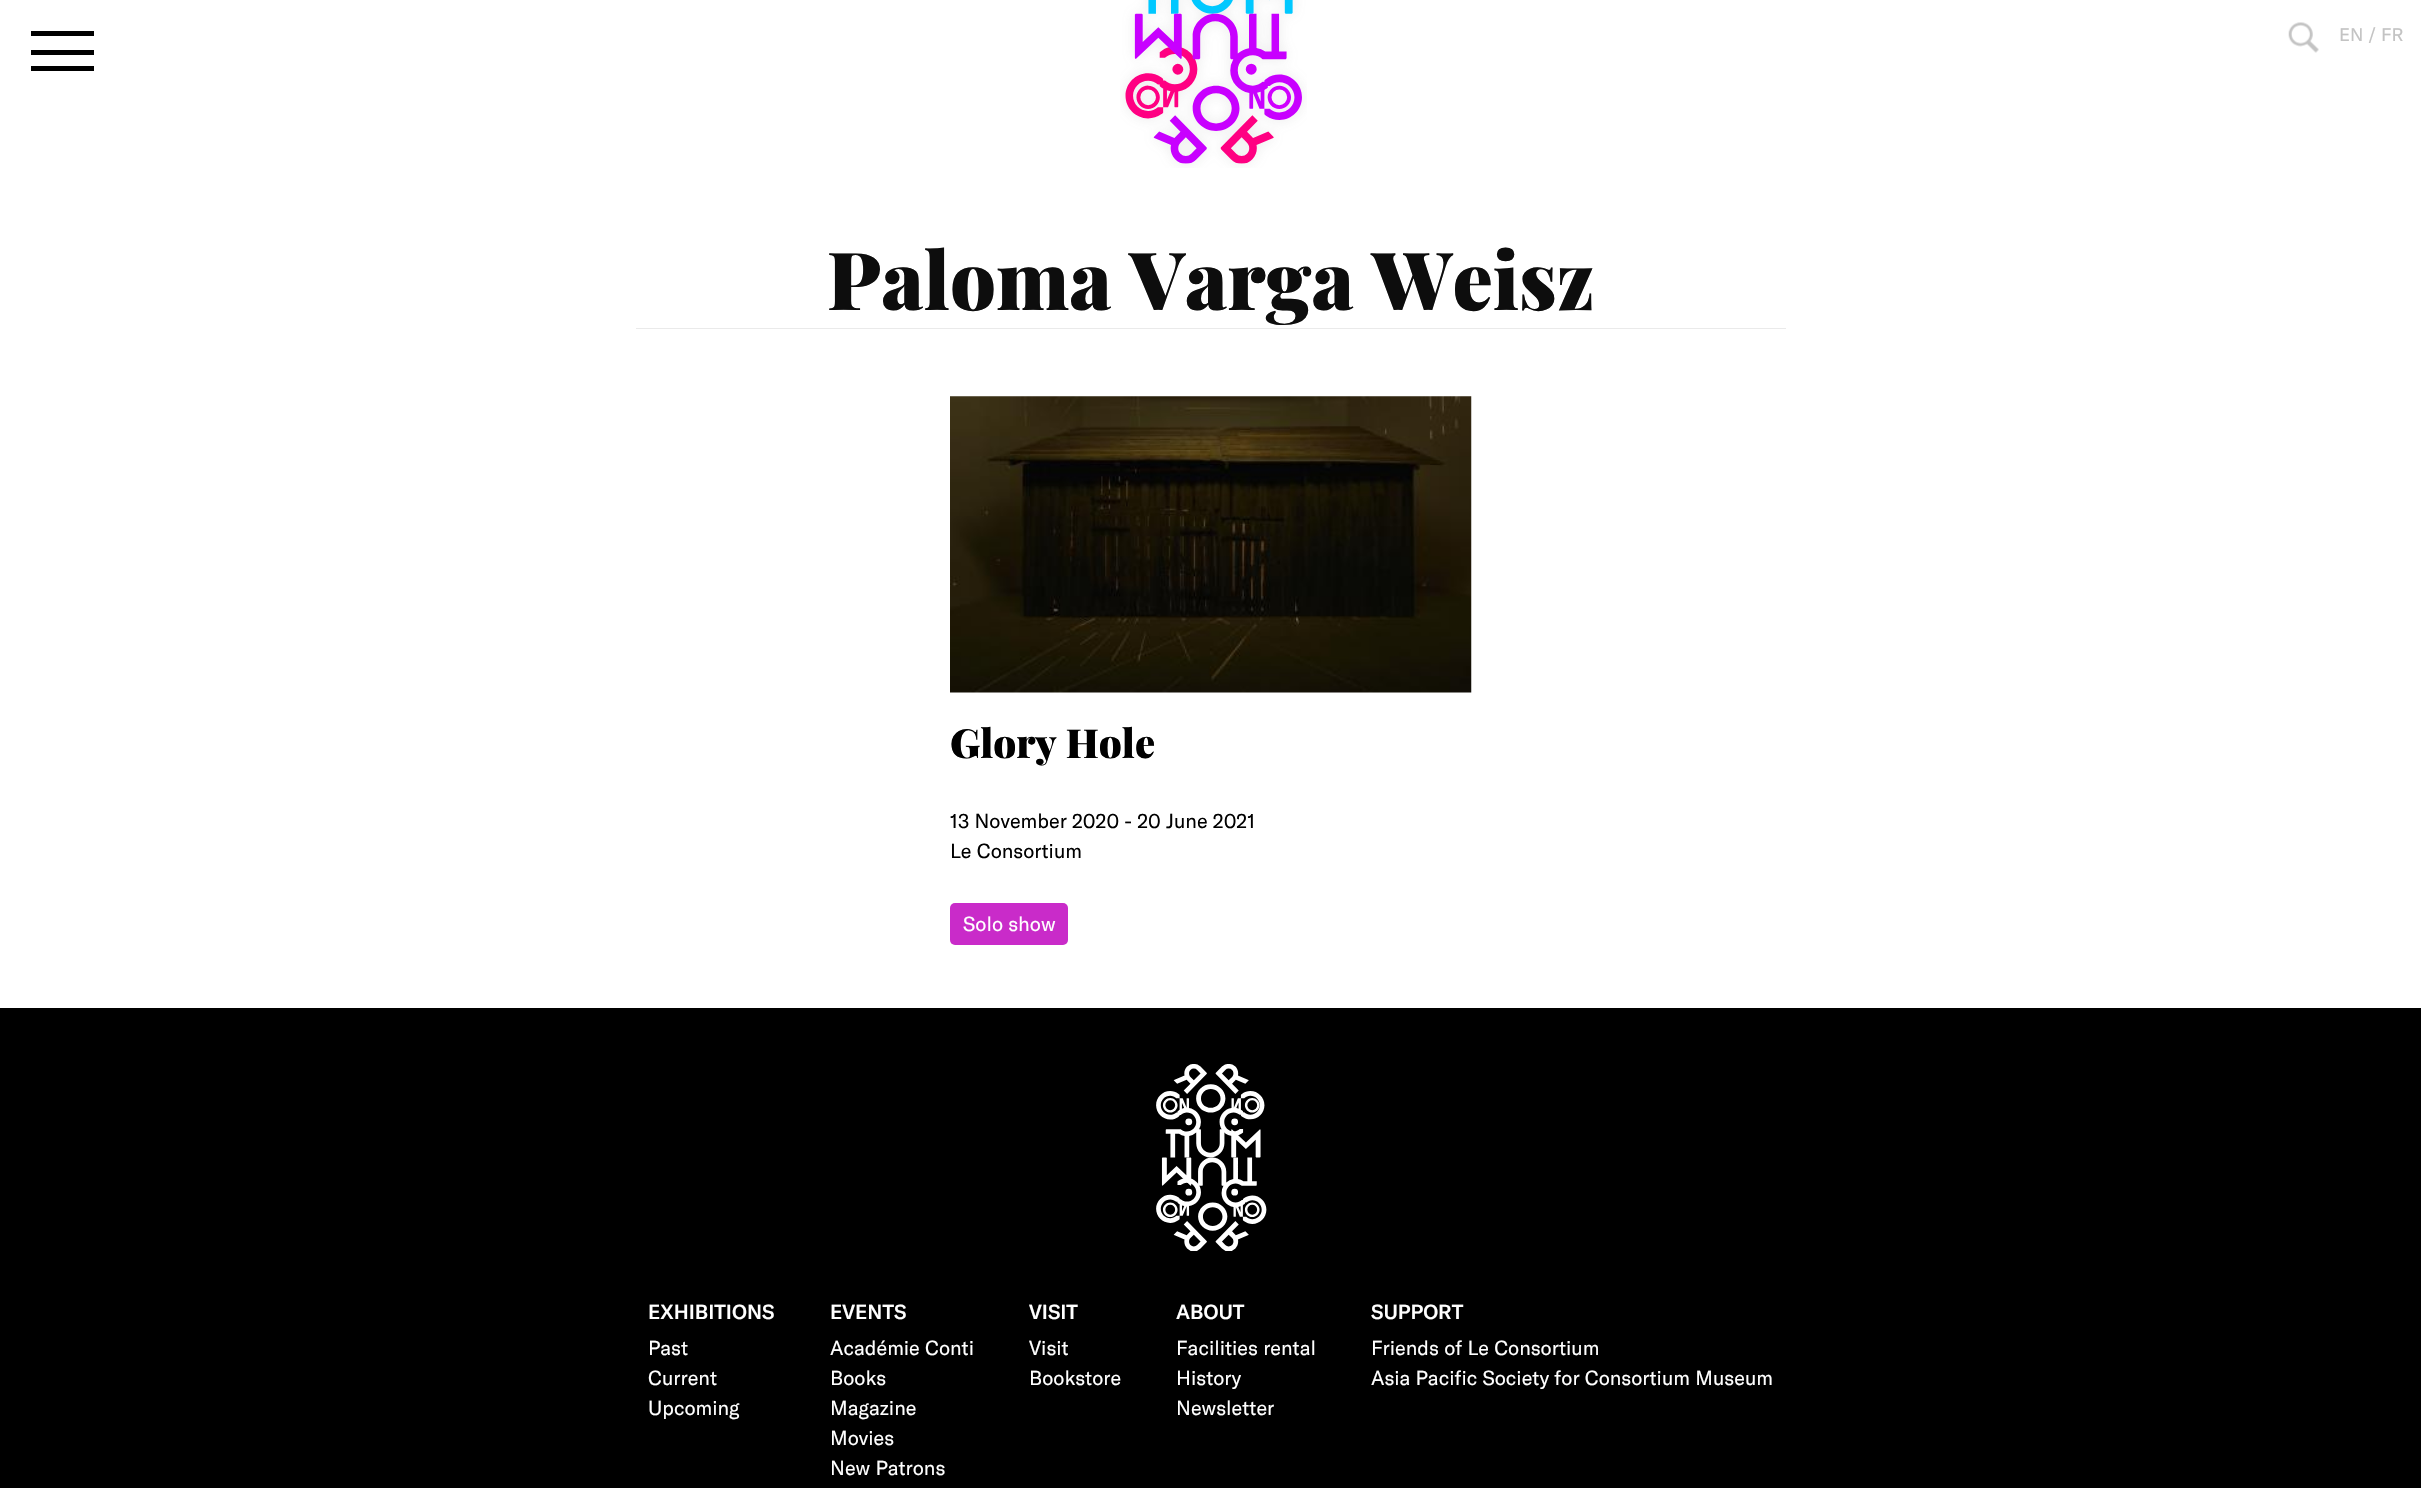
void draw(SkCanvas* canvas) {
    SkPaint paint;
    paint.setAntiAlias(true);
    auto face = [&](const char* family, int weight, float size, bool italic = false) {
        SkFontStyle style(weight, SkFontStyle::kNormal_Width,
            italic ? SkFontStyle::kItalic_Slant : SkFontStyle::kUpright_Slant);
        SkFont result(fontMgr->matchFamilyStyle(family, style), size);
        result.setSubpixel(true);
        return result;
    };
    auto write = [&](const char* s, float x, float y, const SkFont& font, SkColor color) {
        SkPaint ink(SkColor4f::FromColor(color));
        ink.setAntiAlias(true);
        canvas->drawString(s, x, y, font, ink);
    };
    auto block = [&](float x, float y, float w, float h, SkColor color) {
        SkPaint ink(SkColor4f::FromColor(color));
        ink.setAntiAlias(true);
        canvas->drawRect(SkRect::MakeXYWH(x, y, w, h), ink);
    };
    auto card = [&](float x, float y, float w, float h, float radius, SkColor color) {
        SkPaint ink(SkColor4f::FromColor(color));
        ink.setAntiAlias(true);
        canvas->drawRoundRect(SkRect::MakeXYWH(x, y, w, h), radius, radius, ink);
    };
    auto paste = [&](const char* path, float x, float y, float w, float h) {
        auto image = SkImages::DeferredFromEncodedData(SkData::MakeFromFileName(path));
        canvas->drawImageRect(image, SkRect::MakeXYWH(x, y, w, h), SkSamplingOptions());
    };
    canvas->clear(SK_ColorWHITE);
    block(31, 31, 63, 5, SK_ColorBLACK);
    block(31, 50, 63, 5, SK_ColorBLACK);
    block(31, 66, 63, 5, SK_ColorBLACK);
    paste("pic1.png", 1120, 0, 187, 168);
    paste("pic2.png", 2288, 22, 31, 31);
    auto kFont1 = face("GT America", 400, 18);
    write("EN", 2339, 41, kFont1, SkColorSetRGB(195, 195, 195));
    write("/", 2368, 41, kFont1, SkColorSetRGB(195, 195, 195));
    write("FR", 2381, 41, kFont1, SkColorSetRGB(195, 195, 195));
    block(636, 328, 1150, 1, SkColorSetRGB(234, 234, 234));
    auto kFont2 = face("Playfair Display", 900, 80);
    write("Paloma Varga Weisz", 827, 310, kFont2, SkColorSetRGB(13, 13, 13));
    paste("pic3.png", 950, 396, 522, 297);
    auto kFont3 = face("Playfair Display", 900, 40);
    write("Glory Hole", 950, 758, kFont3, SK_ColorBLACK);
    auto kFont4 = face("GT America", 400, 20);
    write("13 November 2020 - 20 June 2021", 950, 828, kFont4, SK_ColorBLACK);
    write("Le Consortium", 950, 858, kFont4, SK_ColorBLACK);
    card(950, 903, 118, 42, 5, SkColorSetRGB(201, 43, 201));
    write("Solo show", 963, 931, kFont4, SK_ColorWHITE);
    block(0, 1008, 2421, 480, SK_ColorBLACK);
    paste("pic4.png", 1156, 1064, 111, 187);
    auto kFont5 = face("GT America", 500, 20);
    write("EXHIBITIONS", 648, 1319, kFont5, SK_ColorWHITE);
    write("Past", 648, 1355, kFont4, SK_ColorWHITE);
    write("Current", 648, 1385, kFont4, SK_ColorWHITE);
    write("Upcoming", 648, 1415, kFont4, SK_ColorWHITE);
    write("EVENTS", 830, 1319, kFont5, SK_ColorWHITE);
    write("Académie Conti", 830, 1355, kFont4, SK_ColorWHITE);
    write("Books", 830, 1385, kFont4, SK_ColorWHITE);
    write("Magazine", 830, 1415, kFont4, SK_ColorWHITE);
    write("Movies", 830, 1445, kFont4, SK_ColorWHITE);
    write("New Patrons", 830, 1475, kFont4, SK_ColorWHITE);
    write("VISIT", 1029, 1319, kFont5, SK_ColorWHITE);
    write("Visit", 1029, 1355, kFont4, SK_ColorWHITE);
    write("Bookstore", 1029, 1385, kFont4, SK_ColorWHITE);
    write("ABOUT", 1176, 1319, kFont5, SK_ColorWHITE);
    write("Facilities rental", 1176, 1355, kFont4, SK_ColorWHITE);
    write("History", 1176, 1385, kFont4, SK_ColorWHITE);
    write("Newsletter", 1176, 1415, kFont4, SK_ColorWHITE);
    write("SUPPORT", 1371, 1319, kFont5, SK_ColorWHITE);
    write("Friends of Le Consortium", 1371, 1355, kFont4, SK_ColorWHITE);
    write("Asia Pacific Society for Consortium Museum", 1371, 1385, kFont4, SK_ColorWHITE);
}
